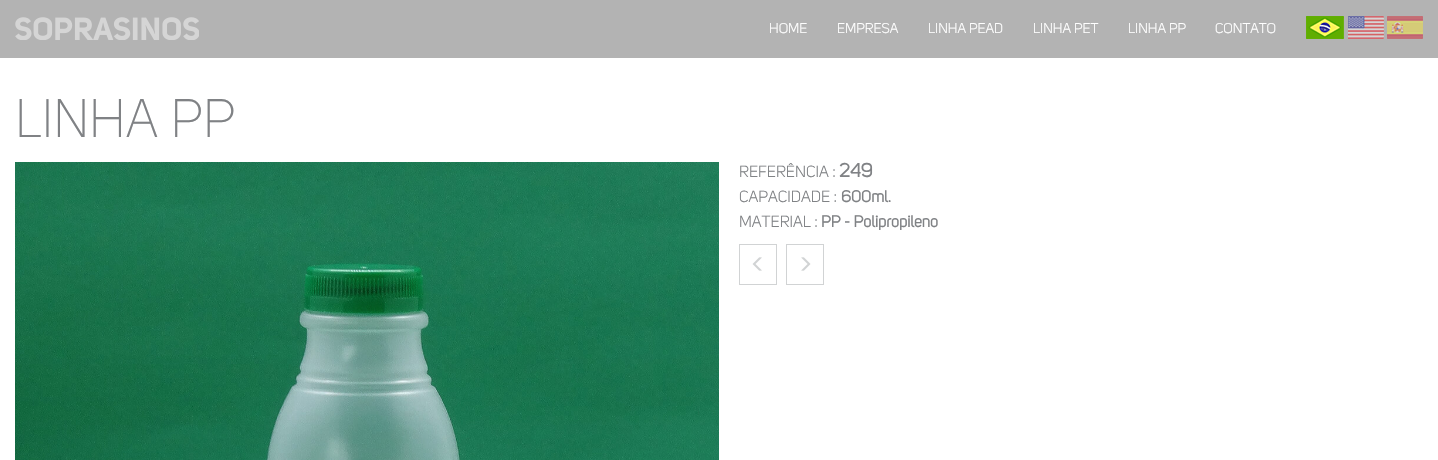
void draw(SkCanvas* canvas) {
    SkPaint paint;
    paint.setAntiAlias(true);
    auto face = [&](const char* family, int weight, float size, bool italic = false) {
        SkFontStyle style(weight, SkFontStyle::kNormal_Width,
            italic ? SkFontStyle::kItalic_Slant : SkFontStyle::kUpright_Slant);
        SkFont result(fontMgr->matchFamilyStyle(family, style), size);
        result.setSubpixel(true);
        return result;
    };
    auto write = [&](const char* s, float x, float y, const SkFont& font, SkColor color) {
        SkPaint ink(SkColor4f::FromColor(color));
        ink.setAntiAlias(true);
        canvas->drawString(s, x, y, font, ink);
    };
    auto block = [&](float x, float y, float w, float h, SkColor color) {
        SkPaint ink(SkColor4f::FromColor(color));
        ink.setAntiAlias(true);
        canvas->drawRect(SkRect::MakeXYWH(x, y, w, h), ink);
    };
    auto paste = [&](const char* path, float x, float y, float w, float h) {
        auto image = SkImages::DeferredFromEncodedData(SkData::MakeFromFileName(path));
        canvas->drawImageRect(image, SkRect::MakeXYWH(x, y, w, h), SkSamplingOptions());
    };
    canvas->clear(SK_ColorWHITE);
    block(0, 0, 1438, 58, SkColorSetRGB(179, 179, 179));
    paste("pic1.png", 15, 17, 184, 23);
    auto kFont1 = face("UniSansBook", 400, 14);
    write("HOME", 769, 33, kFont1, SK_ColorWHITE);
    write("EMPRESA", 837, 33, kFont1, SK_ColorWHITE);
    write("LINHA PEAD", 928, 33, kFont1, SK_ColorWHITE);
    write("LINHA PET", 1033, 33, kFont1, SK_ColorWHITE);
    write("LINHA PP", 1128, 33, kFont1, SK_ColorWHITE);
    write("CONTATO", 1215, 33, kFont1, SK_ColorWHITE);
    paste("pic2.png", 1306, 16, 38, 23);
    paste("pic3.png", 1348, 16, 36, 23);
    paste("pic4.png", 1387, 16, 36, 23);
    auto kFont2 = face("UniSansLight", 300, 53.5f);
    write("LINHA PP", 15, 137, kFont2, SkColorSetRGB(128, 130, 133));
    paste("pic5.png", 15, 162, 704, 298);
    auto kFont3 = face("UniSansBook", 400, 16);
    write("REFERÊNCIA :", 739, 177, kFont3, SkColorSetRGB(128, 130, 133));
    auto kFont4 = face("UniSansBook", 700, 19);
    write("249", 839, 177, kFont4, SkColorSetRGB(128, 130, 133));
    write("CAPACIDADE :", 739, 202, kFont3, SkColorSetRGB(128, 130, 133));
    auto kFont5 = face("UniSansBook", 700, 16);
    write("600ml.", 841, 202, kFont5, SkColorSetRGB(128, 130, 133));
    write("MATERIAL :", 739, 227, kFont3, SkColorSetRGB(128, 130, 133));
    write("PP - Polipropileno", 821, 227, kFont5, SkColorSetRGB(128, 130, 133));
    paint.setStyle(SkPaint::kStroke_Style);
    paint.setStrokeWidth(1);
    paint.setColor(SkColorSetRGB(209, 211, 212));
    canvas->drawRect(SkRect::MakeXYWH(739.5f, 244.5f, 37, 40), paint);
    paste("pic6.png", 752, 257, 10, 14);
    canvas->drawRect(SkRect::MakeXYWH(786.5f, 244.5f, 37, 40), paint);
    paste("pic7.png", 801, 257, 10, 14);
}
